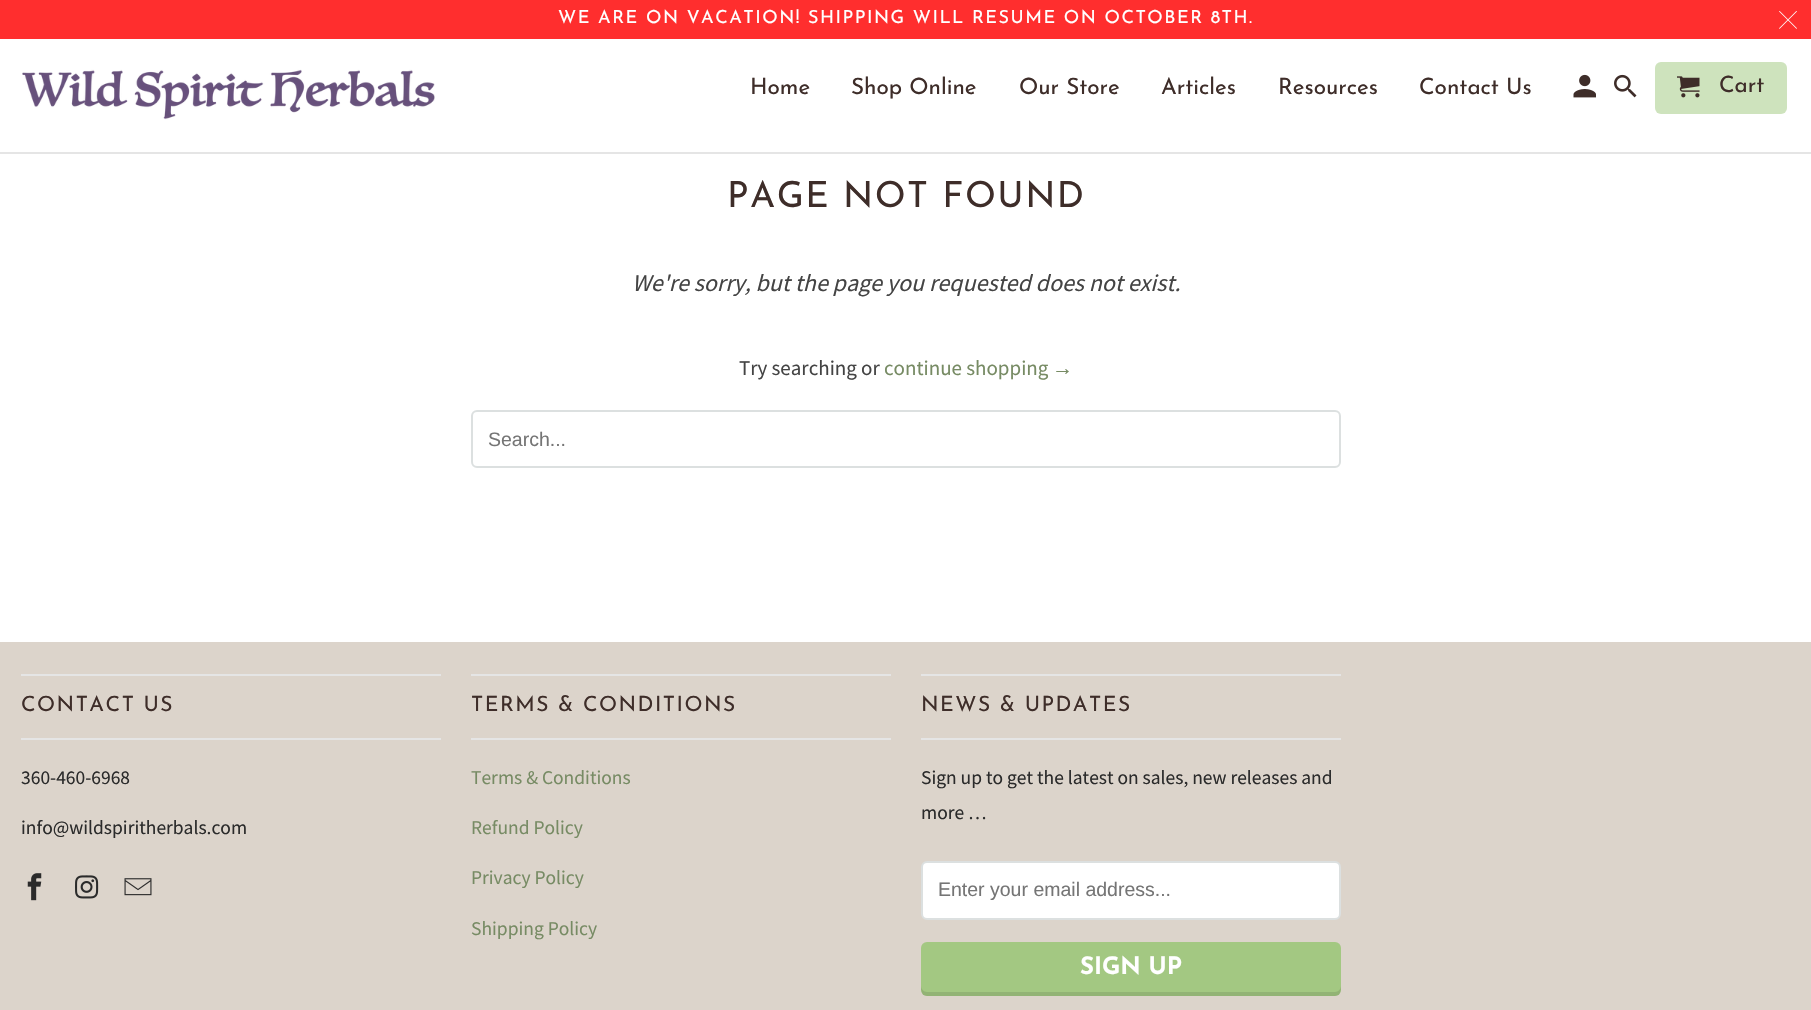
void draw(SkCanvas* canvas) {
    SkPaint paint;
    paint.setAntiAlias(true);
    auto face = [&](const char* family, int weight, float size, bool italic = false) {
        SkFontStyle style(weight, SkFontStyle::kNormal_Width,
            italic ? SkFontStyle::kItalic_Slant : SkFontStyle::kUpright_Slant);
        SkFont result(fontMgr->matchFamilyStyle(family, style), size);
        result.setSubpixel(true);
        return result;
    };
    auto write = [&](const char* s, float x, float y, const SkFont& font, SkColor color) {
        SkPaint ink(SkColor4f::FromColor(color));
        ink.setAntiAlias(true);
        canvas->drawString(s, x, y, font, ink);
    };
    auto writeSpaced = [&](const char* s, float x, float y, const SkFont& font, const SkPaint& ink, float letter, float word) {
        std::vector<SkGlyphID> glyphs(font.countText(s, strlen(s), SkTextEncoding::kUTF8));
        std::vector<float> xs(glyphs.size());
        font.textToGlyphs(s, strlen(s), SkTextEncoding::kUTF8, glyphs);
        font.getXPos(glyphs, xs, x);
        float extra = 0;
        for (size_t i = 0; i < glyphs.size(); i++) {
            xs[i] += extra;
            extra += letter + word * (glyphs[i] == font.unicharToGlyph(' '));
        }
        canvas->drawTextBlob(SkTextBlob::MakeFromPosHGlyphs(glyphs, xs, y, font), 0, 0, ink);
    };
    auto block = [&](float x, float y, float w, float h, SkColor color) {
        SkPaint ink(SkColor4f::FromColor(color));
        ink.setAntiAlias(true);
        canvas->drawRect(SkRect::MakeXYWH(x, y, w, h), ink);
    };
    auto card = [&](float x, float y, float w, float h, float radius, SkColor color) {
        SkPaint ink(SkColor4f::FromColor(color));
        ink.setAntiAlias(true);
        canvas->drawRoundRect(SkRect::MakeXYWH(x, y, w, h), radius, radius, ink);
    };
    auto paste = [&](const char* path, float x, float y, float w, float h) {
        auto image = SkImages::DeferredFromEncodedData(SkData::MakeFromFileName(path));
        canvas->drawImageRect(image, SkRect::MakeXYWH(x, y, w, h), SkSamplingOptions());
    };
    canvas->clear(SK_ColorWHITE);
    block(0, 152, 1811, 2, SkColorSetRGB(229, 229, 229));
    block(0, 0, 1811, 39, SkColorSetRGB(255, 46, 46));
    auto kFont1 = face("Josefin Sans", 400, 18);
    paint.setColor(SK_ColorWHITE);
    writeSpaced("WE ARE ON VACATION! SHIPPING WILL RESUME ON OCTOBER 8TH.", 558, 23, kFont1, paint, 1.5f, 0);
    paste("pic1.png", 1779, 11, 18, 18);
    paste("pic2.png", 22, 69, 413, 51);
    auto kFont2 = face("Josefin Sans", 400, 22.5f);
    write("Home", 750, 94, kFont2, SkColorSetRGB(62, 45, 41));
    write("Shop Online", 851, 94, kFont2, SkColorSetRGB(62, 45, 41));
    write("Our Store", 1019, 94, kFont2, SkColorSetRGB(62, 45, 41));
    write("Articles", 1161, 94, kFont2, SkColorSetRGB(62, 45, 41));
    write("Resources", 1278, 94, kFont2, SkColorSetRGB(62, 45, 41));
    write("Contact Us", 1419, 94, kFont2, SkColorSetRGB(62, 45, 41));
    paste("pic3.png", 1573, 74, 23, 24);
    paste("pic4.png", 1614, 74, 23, 24);
    card(1655, 62, 132, 52, 6, SkColorSetRGB(206, 227, 189));
    paste("pic5.png", 1677, 76, 23, 22);
    write("Cart", 1719, 92, kFont2, SkColorSetRGB(62, 45, 41));
    auto kFont3 = face("Josefin Sans", 400, 36);
    paint.setColor(SkColorSetRGB(62, 45, 41));
    writeSpaced("PAGE NOT FOUND", 727, 207, kFont3, paint, 1.5f, 0);
    auto kFont4 = face("Source Sans Pro", 400, 24, true);
    write("We're sorry, but the page you requested does not exist.", 632, 291, kFont4, SkColorSetRGB(68, 68, 68));
    auto kFont5 = face("Source Sans Pro", 400, 21);
    write("Try searching or", 739, 375, kFont5, SkColorSetRGB(68, 68, 68));
    write("continue shopping", 884, 375, kFont5, SkColorSetRGB(119, 139, 100));
    auto kFont6 = face("Liberation Serif", 400, 21);
    write("→", 1052, 375, kFont6, SkColorSetRGB(119, 139, 100));
    paint.setStyle(SkPaint::kStroke_Style);
    paint.setStrokeWidth(2);
    paint.setColor(SkColorSetRGB(220, 224, 224));
    canvas->drawRoundRect(SkRect::MakeXYWH(472, 411, 868, 56), 5, 5, paint);
    auto kFont7 = face("Liberation Sans", 400, 19.5f);
    write("Search...", 488, 446, kFont7, SkColorSetRGB(117, 117, 117));
    block(0, 642, 1811, 368, SkColorSetRGB(220, 212, 203));
    block(21, 674, 420, 2, SkColorSetRGB(229, 229, 229));
    block(21, 738, 420, 2, SkColorSetRGB(229, 229, 229));
    auto kFont8 = face("Josefin Sans", 400, 21);
    paint.setStyle(SkPaint::kFill_Style);
    paint.setColor(SkColorSetRGB(62, 45, 41));
    writeSpaced("CONTACT US", 21, 711, kFont8, paint, 1.5f, 0);
    auto kFont9 = face("Source Sans Pro", 400, 19.5f);
    write("360-460-6968", 21, 784, kFont9, SkColorSetRGB(43, 43, 43));
    write("info@wildspiritherbals.com", 21, 834, kFont9, SkColorSetRGB(43, 43, 43));
    paste("pic6.png", 27, 873, 15, 28);
    paste("pic7.png", 75, 875, 24, 24);
    paste("pic8.png", 124, 878, 28, 18);
    block(471, 674, 420, 2, SkColorSetRGB(229, 229, 229));
    block(471, 738, 420, 2, SkColorSetRGB(229, 229, 229));
    writeSpaced("TERMS & CONDITIONS", 471, 711, kFont8, paint, 1.5f, 0);
    write("Terms & Conditions", 471, 784, kFont9, SkColorSetRGB(119, 139, 100));
    write("Refund Policy", 471, 834, kFont9, SkColorSetRGB(119, 139, 100));
    write("Privacy Policy", 471, 884, kFont9, SkColorSetRGB(119, 139, 100));
    write("Shipping Policy", 471, 935, kFont9, SkColorSetRGB(119, 139, 100));
    block(921, 674, 420, 2, SkColorSetRGB(229, 229, 229));
    block(921, 738, 420, 2, SkColorSetRGB(229, 229, 229));
    writeSpaced("NEWS & UPDATES", 921, 711, kFont8, paint, 1.5f, 0);
    write("Sign up to get the latest on sales, new releases and", 921, 784, kFont9, SkColorSetRGB(43, 43, 43));
    write("more …", 921, 819, kFont9, SkColorSetRGB(43, 43, 43));
    paint.setColor(SK_ColorWHITE);
    canvas->drawRoundRect(SkRect::MakeXYWH(922, 862, 418, 57), 5, 5, paint);
    paint.setStyle(SkPaint::kStroke_Style);
    paint.setColor(SkColorSetRGB(220, 224, 224));
    canvas->drawRoundRect(SkRect::MakeXYWH(922, 862, 418, 57), 5, 5, paint);
    write("Enter your email address...", 938, 896, kFont7, SkColorSetRGB(117, 117, 117));
    card(921, 942, 420, 54, 6, SkColorSetRGB(163, 200, 130));
    paint.setStyle(SkPaint::kFill_Style);
    paint.setColor(SkColorSetARGB(26, 0, 0, 0));
    canvas->drawPath(SkPathBuilder().moveTo(921, 986).cubicTo(921, 990, 921, 996, 927, 996).lineTo(1335, 996).cubicTo(1341, 996, 1341, 990, 1341, 986).cubicTo(1341, 989, 1338, 992, 1335, 992).lineTo(927, 992).cubicTo(924, 992, 921, 989, 921, 986).close().detach(), paint);
    auto kFont10 = face("Josefin Sans", 700, 24);
    write("SIGN UP", 1080, 974, kFont10, SK_ColorWHITE);
}
